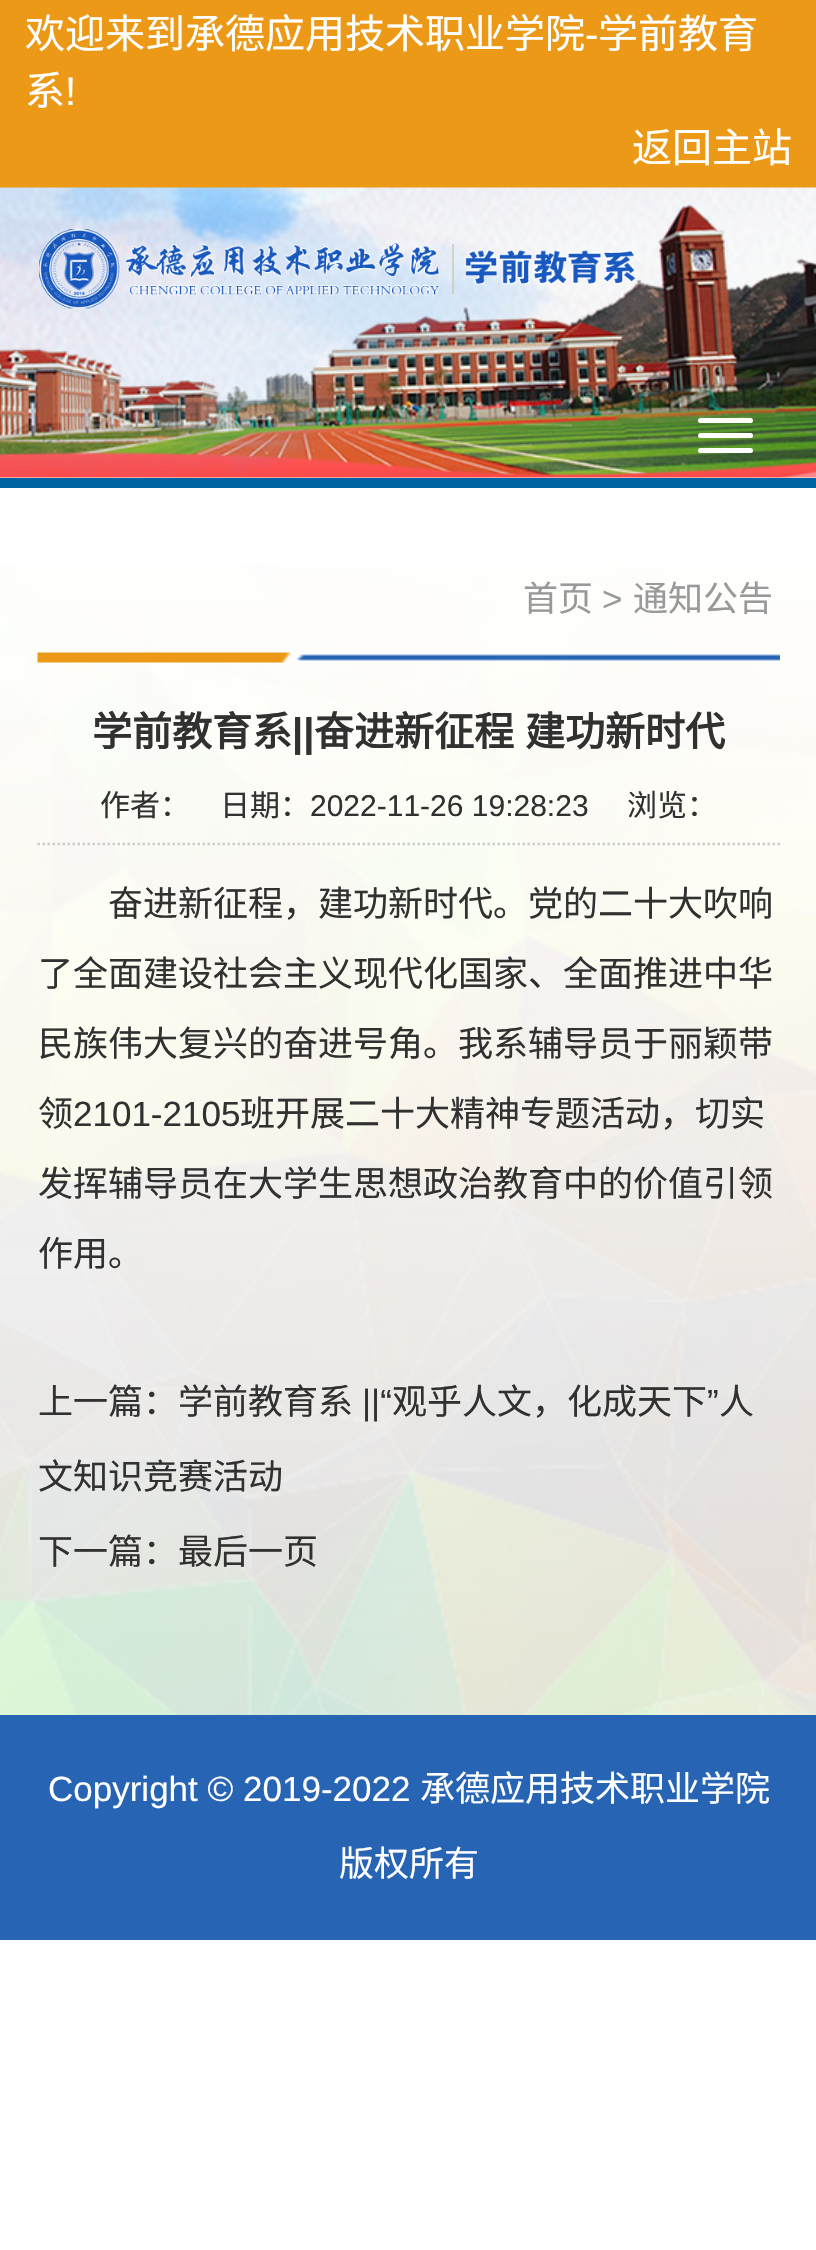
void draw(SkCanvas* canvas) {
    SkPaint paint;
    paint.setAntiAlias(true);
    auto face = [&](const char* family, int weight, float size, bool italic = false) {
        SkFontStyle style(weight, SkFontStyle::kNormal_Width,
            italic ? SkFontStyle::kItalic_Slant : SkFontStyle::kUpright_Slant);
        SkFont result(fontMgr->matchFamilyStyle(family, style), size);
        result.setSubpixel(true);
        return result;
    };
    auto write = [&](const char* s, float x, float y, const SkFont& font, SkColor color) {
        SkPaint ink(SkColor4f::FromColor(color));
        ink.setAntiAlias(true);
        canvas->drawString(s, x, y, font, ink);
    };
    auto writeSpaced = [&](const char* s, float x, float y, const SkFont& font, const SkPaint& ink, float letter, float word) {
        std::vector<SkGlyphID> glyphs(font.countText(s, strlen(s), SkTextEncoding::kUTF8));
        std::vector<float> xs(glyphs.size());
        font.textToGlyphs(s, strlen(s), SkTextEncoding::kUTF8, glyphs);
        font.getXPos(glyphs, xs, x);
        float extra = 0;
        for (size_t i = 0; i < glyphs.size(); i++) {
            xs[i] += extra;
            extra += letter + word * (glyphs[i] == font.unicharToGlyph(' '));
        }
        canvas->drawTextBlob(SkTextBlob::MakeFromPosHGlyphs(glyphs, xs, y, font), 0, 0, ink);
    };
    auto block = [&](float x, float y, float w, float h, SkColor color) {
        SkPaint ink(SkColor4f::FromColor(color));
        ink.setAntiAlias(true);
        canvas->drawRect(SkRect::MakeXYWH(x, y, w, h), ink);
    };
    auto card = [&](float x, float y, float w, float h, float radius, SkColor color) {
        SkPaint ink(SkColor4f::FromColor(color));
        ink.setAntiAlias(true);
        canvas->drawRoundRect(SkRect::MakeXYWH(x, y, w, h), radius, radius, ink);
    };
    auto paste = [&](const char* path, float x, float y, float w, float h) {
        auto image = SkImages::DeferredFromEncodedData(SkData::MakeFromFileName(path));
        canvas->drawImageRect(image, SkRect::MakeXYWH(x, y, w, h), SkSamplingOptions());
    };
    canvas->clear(SK_ColorWHITE);
    paste("pic1.png", 0, 564, 816, 1151);
    block(0, 0, 816, 188, SkColorSetRGB(235, 153, 23));
    auto kFont1 = face("Noto Sans CJK SC", 400, 40);
    write("欢迎来到承德应用技术职业学院", 25, 48, kFont1, SK_ColorWHITE);
    auto kFont2 = face("Liberation Sans", 400, 40);
    write("-", 585, 48, kFont2, SK_ColorWHITE);
    write("学前教育", 598, 48, kFont1, SK_ColorWHITE);
    write("系", 25, 105, kFont1, SK_ColorWHITE);
    write("!", 65, 105, kFont2, SK_ColorWHITE);
    write("返回主站", 632, 162, kFont1, SK_ColorWHITE);
    paste("pic2.png", 0, 187, 816, 291);
    paste("pic3.png", 39, 229, 597, 80);
    card(698, 418, 55, 5, 2.5f, SK_ColorWHITE);
    card(698, 433, 55, 5, 2.5f, SK_ColorWHITE);
    card(698, 448, 55, 5, 2.5f, SK_ColorWHITE);
    block(0, 478, 816, 10, SkColorSetRGB(0, 100, 162));
    paste("pic4.png", 37, 652, 743, 11);
    auto kFont3 = face("Noto Sans CJK SC", 400, 35);
    write("首页", 523, 611, kFont3, SkColorSetRGB(153, 153, 153));
    auto kFont4 = face("Liberation Sans", 400, 35);
    write(">", 602, 611, kFont4, SkColorSetRGB(153, 153, 153));
    write("通知公告", 633, 611, kFont3, SkColorSetRGB(153, 153, 153));
    auto kFont5 = face("Noto Sans CJK SC", 700, 40);
    write("学前教育系", 92, 746, kFont5, SkColorSetRGB(49, 49, 49));
    auto kFont6 = face("Liberation Sans", 700, 40);
    write("||", 292, 746, kFont6, SkColorSetRGB(49, 49, 49));
    paint.setColor(SkColorSetRGB(49, 49, 49));
    writeSpaced("奋进新征程 建功新时代", 314, 746, kFont5, paint, 0, 2);
    paint.setStyle(SkPaint::kStroke_Style);
    paint.setStrokeWidth(2.5f);
    paint.setColor(SkColorSetRGB(204, 204, 204));
    paint.setPathEffect(SkDashPathEffect::Make({{2.5f, 2.5f}}, 0));
    canvas->drawPath(SkPathBuilder().moveTo(37.5f, 844).lineTo(780, 844).detach(), paint);
    paint.setPathEffect(nullptr);
    auto kFont7 = face("Noto Sans CJK SC", 400, 30);
    write("作者：", 100, 816, kFont7, SkColorSetRGB(49, 49, 49));
    write("日期：", 220, 816, kFont7, SkColorSetRGB(49, 49, 49));
    auto kFont8 = face("Liberation Sans", 400, 30);
    write("2022-11-26 19:28:23", 310, 816, kFont8, SkColorSetRGB(49, 49, 49));
    write("浏览：", 627, 816, kFont7, SkColorSetRGB(49, 49, 49));
    write("奋进新征程，建功新时代。党的二十大吹响", 108, 916, kFont3, SkColorSetRGB(49, 49, 49));
    write("了全面建设社会主义现代化国家、全面推进中华", 38, 986, kFont3, SkColorSetRGB(49, 49, 49));
    write("民族伟大复兴的奋进号角。我系辅导员于丽颖带", 38, 1056, kFont3, SkColorSetRGB(49, 49, 49));
    write("领", 38, 1126, kFont3, SkColorSetRGB(49, 49, 49));
    write("2101-2105", 73, 1126, kFont4, SkColorSetRGB(49, 49, 49));
    write("班开展二十大精神专题活动，切实", 240, 1126, kFont3, SkColorSetRGB(49, 49, 49));
    write("发挥辅导员在大学生思想政治教育中的价值引领", 38, 1196, kFont3, SkColorSetRGB(49, 49, 49));
    write("作用。", 38, 1266, kFont3, SkColorSetRGB(49, 49, 49));
    write("上一篇：", 38, 1414, kFont3, SkColorSetRGB(49, 49, 49));
    write("学前教育系", 178, 1414, kFont3, SkColorSetRGB(49, 49, 49));
    write("||“", 362, 1414, kFont4, SkColorSetRGB(49, 49, 49));
    write("观乎人文，化成天下", 392, 1414, kFont3, SkColorSetRGB(49, 49, 49));
    write("”", 707, 1414, kFont4, SkColorSetRGB(49, 49, 49));
    write("人", 719, 1414, kFont3, SkColorSetRGB(49, 49, 49));
    write("文知识竞赛活动", 38, 1489, kFont3, SkColorSetRGB(49, 49, 49));
    write("下一篇：", 38, 1564, kFont3, SkColorSetRGB(49, 49, 49));
    write("最后一页", 178, 1564, kFont3, SkColorSetRGB(49, 49, 49));
    block(0, 1715, 816, 225, SkColorSetRGB(39, 100, 179));
    write("Copyright © 2019-2022", 48, 1801, kFont4, SK_ColorWHITE);
    write("承德应用技术职业学院", 420, 1801, kFont3, SK_ColorWHITE);
    write("版权所有", 339, 1876, kFont3, SK_ColorWHITE);
}
